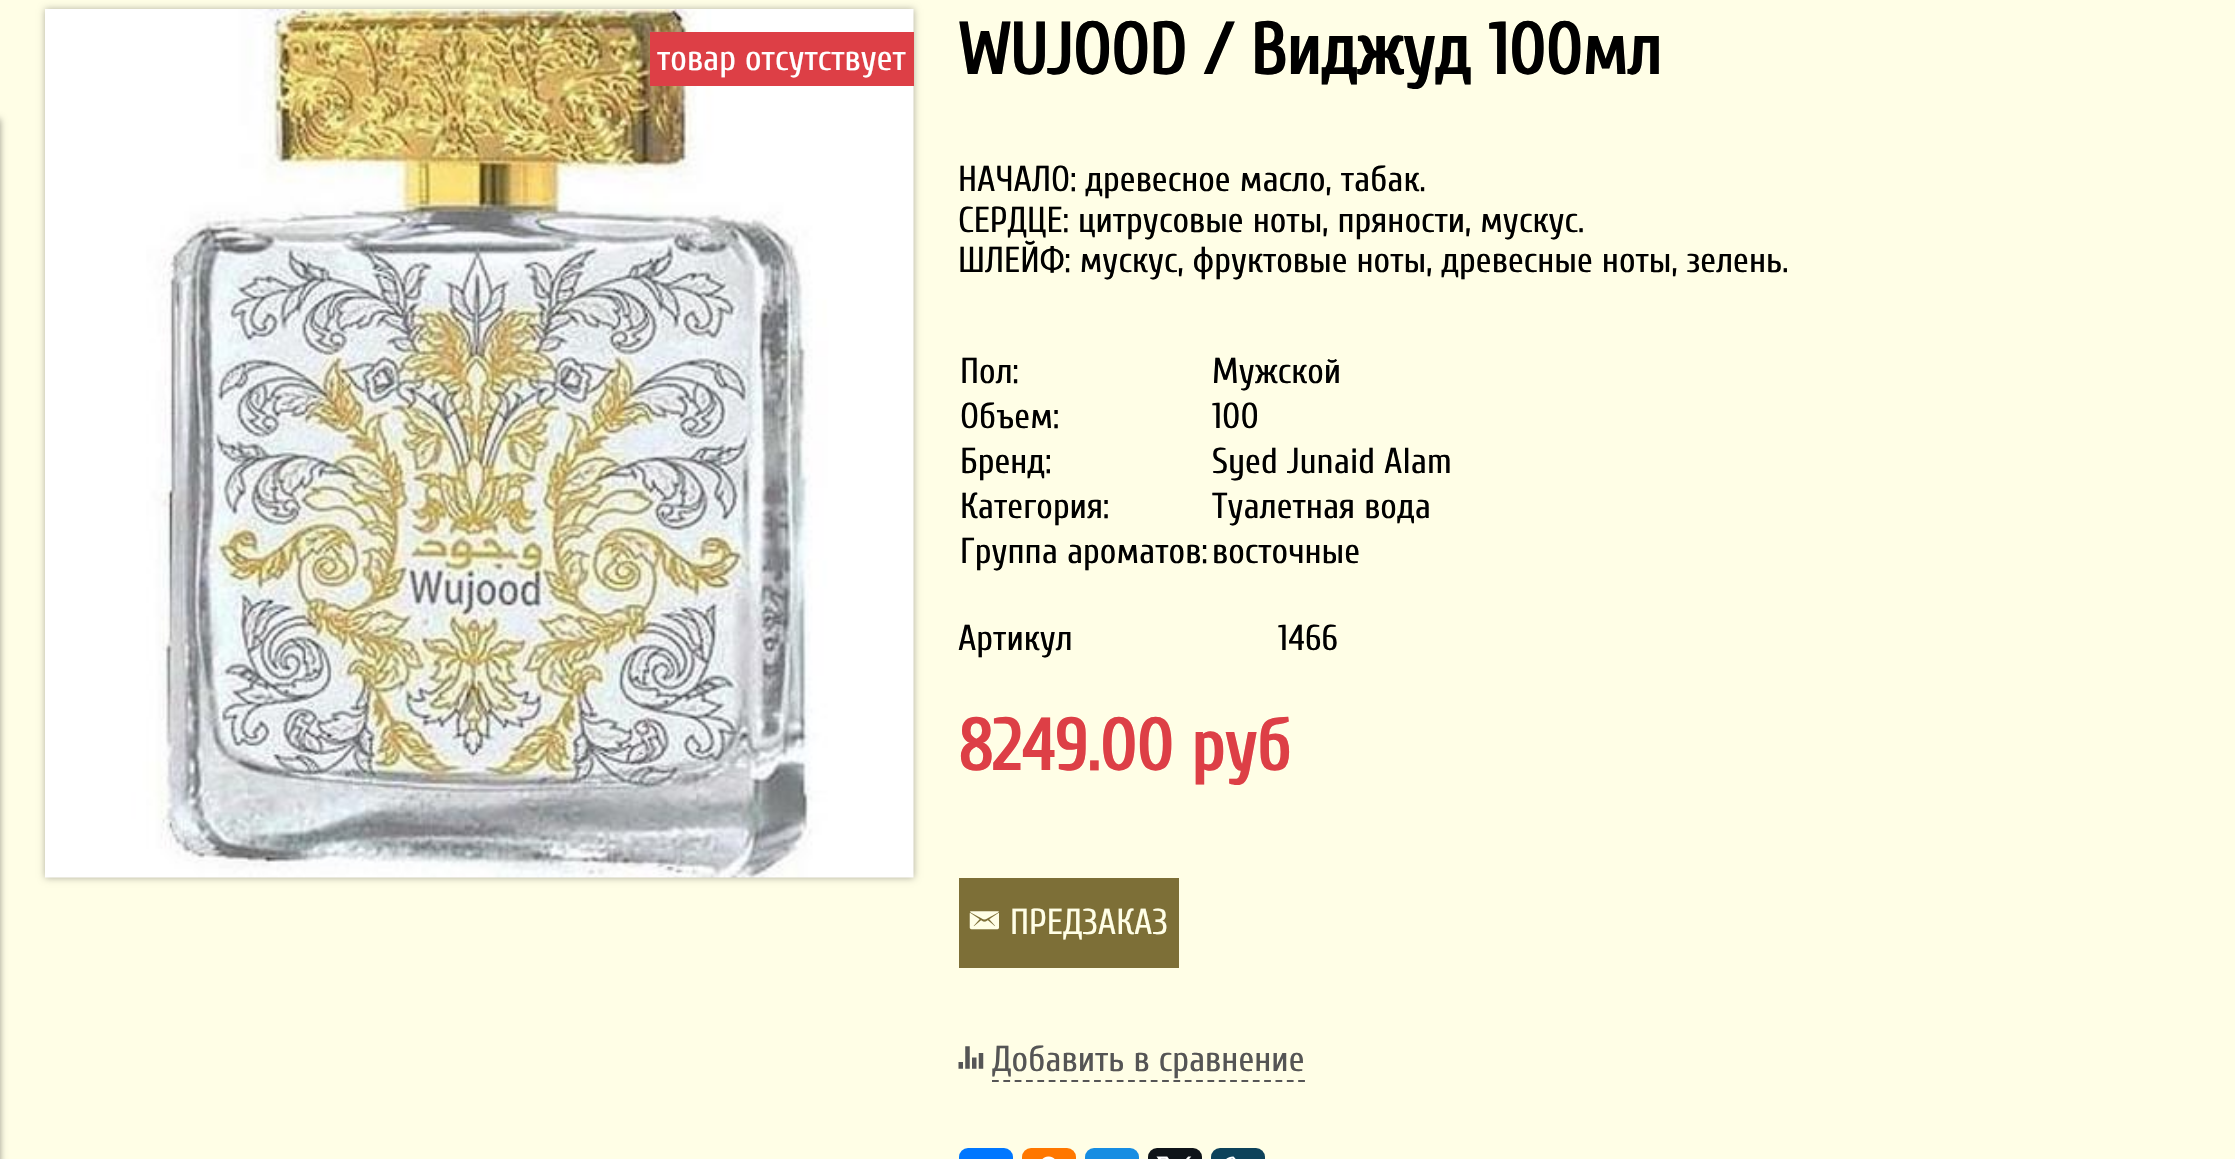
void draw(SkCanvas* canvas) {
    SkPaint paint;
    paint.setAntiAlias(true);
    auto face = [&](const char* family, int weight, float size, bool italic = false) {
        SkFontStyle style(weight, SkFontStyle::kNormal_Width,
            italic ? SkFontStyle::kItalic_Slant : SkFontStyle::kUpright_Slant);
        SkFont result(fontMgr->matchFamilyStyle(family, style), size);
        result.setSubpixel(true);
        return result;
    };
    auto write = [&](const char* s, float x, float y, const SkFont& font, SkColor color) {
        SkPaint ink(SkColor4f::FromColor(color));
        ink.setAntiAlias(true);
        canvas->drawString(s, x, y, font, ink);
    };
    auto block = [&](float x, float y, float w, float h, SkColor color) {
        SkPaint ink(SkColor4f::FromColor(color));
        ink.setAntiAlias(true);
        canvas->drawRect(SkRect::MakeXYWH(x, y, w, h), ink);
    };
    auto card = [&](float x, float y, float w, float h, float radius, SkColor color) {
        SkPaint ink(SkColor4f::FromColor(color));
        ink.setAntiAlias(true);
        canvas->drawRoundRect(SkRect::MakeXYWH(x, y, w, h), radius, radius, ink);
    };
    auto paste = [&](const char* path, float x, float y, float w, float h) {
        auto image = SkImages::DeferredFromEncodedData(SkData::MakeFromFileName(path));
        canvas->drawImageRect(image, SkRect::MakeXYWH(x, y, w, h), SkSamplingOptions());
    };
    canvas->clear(SkColorSetRGB(255, 254, 230));
    paint.setColor(SkColorSetARGB(102, 0, 0, 0));
    paint.setMaskFilter(SkMaskFilter::MakeBlur(kNormal_SkBlurStyle, 3.5f));
    canvas->drawRect(SkRect::MakeXYWH(-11, 119, 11, 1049), paint);
    paint.setMaskFilter(nullptr);
    paint.setColor(SkColorSetARGB(77, 0, 0, 0));
    paint.setMaskFilter(SkMaskFilter::MakeBlur(kNormal_SkBlurStyle, 3.5f));
    canvas->drawRect(SkRect::MakeXYWH(45, 9, 869, 869), paint);
    paint.setMaskFilter(nullptr);
    paste("pic1.png", 45, 9, 869, 869);
    block(650, 32, 264, 54, SkColorSetRGB(221, 63, 70));
    auto kFont1 = face("Cuprum", 400, 36);
    write("товар отсутствует", 657, 70, kFont1, SK_ColorWHITE);
    auto kFont2 = face("Cuprum", 700, 72);
    write("WUJOOD / Виджуд 100мл", 958, 74, kFont2, SK_ColorBLACK);
    write("НАЧАЛО: древесное масло, табак.", 958, 191, kFont1, SK_ColorBLACK);
    write("СЕРДЦЕ: цитрусовые ноты, пряности, мускус.", 958, 232, kFont1, SK_ColorBLACK);
    write("ШЛЕЙФ: мускус, фруктовые ноты, древесные ноты, зелень.", 958, 272, kFont1, SK_ColorBLACK);
    write("Пол:", 960, 383, kFont1, SK_ColorBLACK);
    write("Мужской", 1212, 383, kFont1, SK_ColorBLACK);
    write("Объем:", 960, 428, kFont1, SK_ColorBLACK);
    write("100", 1212, 428, kFont1, SK_ColorBLACK);
    write("Бренд:", 960, 473, kFont1, SK_ColorBLACK);
    write("Syed Junaid Alam", 1212, 473, kFont1, SK_ColorBLACK);
    write("Категория:", 960, 518, kFont1, SK_ColorBLACK);
    write("Туалетная вода", 1212, 518, kFont1, SK_ColorBLACK);
    write("Группа ароматов:", 960, 563, kFont1, SK_ColorBLACK);
    write("восточные", 1212, 563, kFont1, SK_ColorBLACK);
    write("Артикул", 958, 650, kFont1, SK_ColorBLACK);
    write("1466", 1278, 650, kFont1, SK_ColorBLACK);
    write("8249.00 руб", 958, 770, kFont2, SkColorSetRGB(221, 63, 70));
    block(959, 878, 220, 90, SkColorSetRGB(125, 111, 55));
    paste("pic2.png", 969, 911, 30, 19);
    write("ПРЕДЗАКАЗ", 1010, 934, kFont1, SkColorSetRGB(255, 254, 230));
    paste("pic3.png", 958, 1046, 26, 23);
    write("Добавить в сравнение", 992, 1071, kFont1, SkColorSetRGB(85, 85, 85));
    paint.setStyle(SkPaint::kStroke_Style);
    paint.setStrokeWidth(2.2f);
    paint.setColor(SkColorSetRGB(85, 85, 85));
    paint.setPathEffect(SkDashPathEffect::Make({{6.75f, 4.59f}}, 0));
    canvas->drawPath(SkPathBuilder().moveTo(992, 1081).lineTo(1305, 1081).detach(), paint);
    paint.setPathEffect(nullptr);
    card(959, 1148, 54, 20, 9, SkColorSetRGB(0, 119, 255));
    card(1022, 1148, 54, 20, 9, SkColorSetRGB(255, 119, 0));
    paste("pic4.png", 1042, 1156, 13, 3);
    card(1085, 1148, 54, 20, 9, SkColorSetRGB(22, 141, 226));
    card(1148, 1148, 54, 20, 9, SkColorSetRGB(15, 20, 25));
    paste("pic5.png", 1156, 1156, 36, 3);
    card(1211, 1148, 54, 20, 9, SkColorSetRGB(13, 66, 90));
    paste("pic6.png", 1226, 1156, 10, 3);
}
